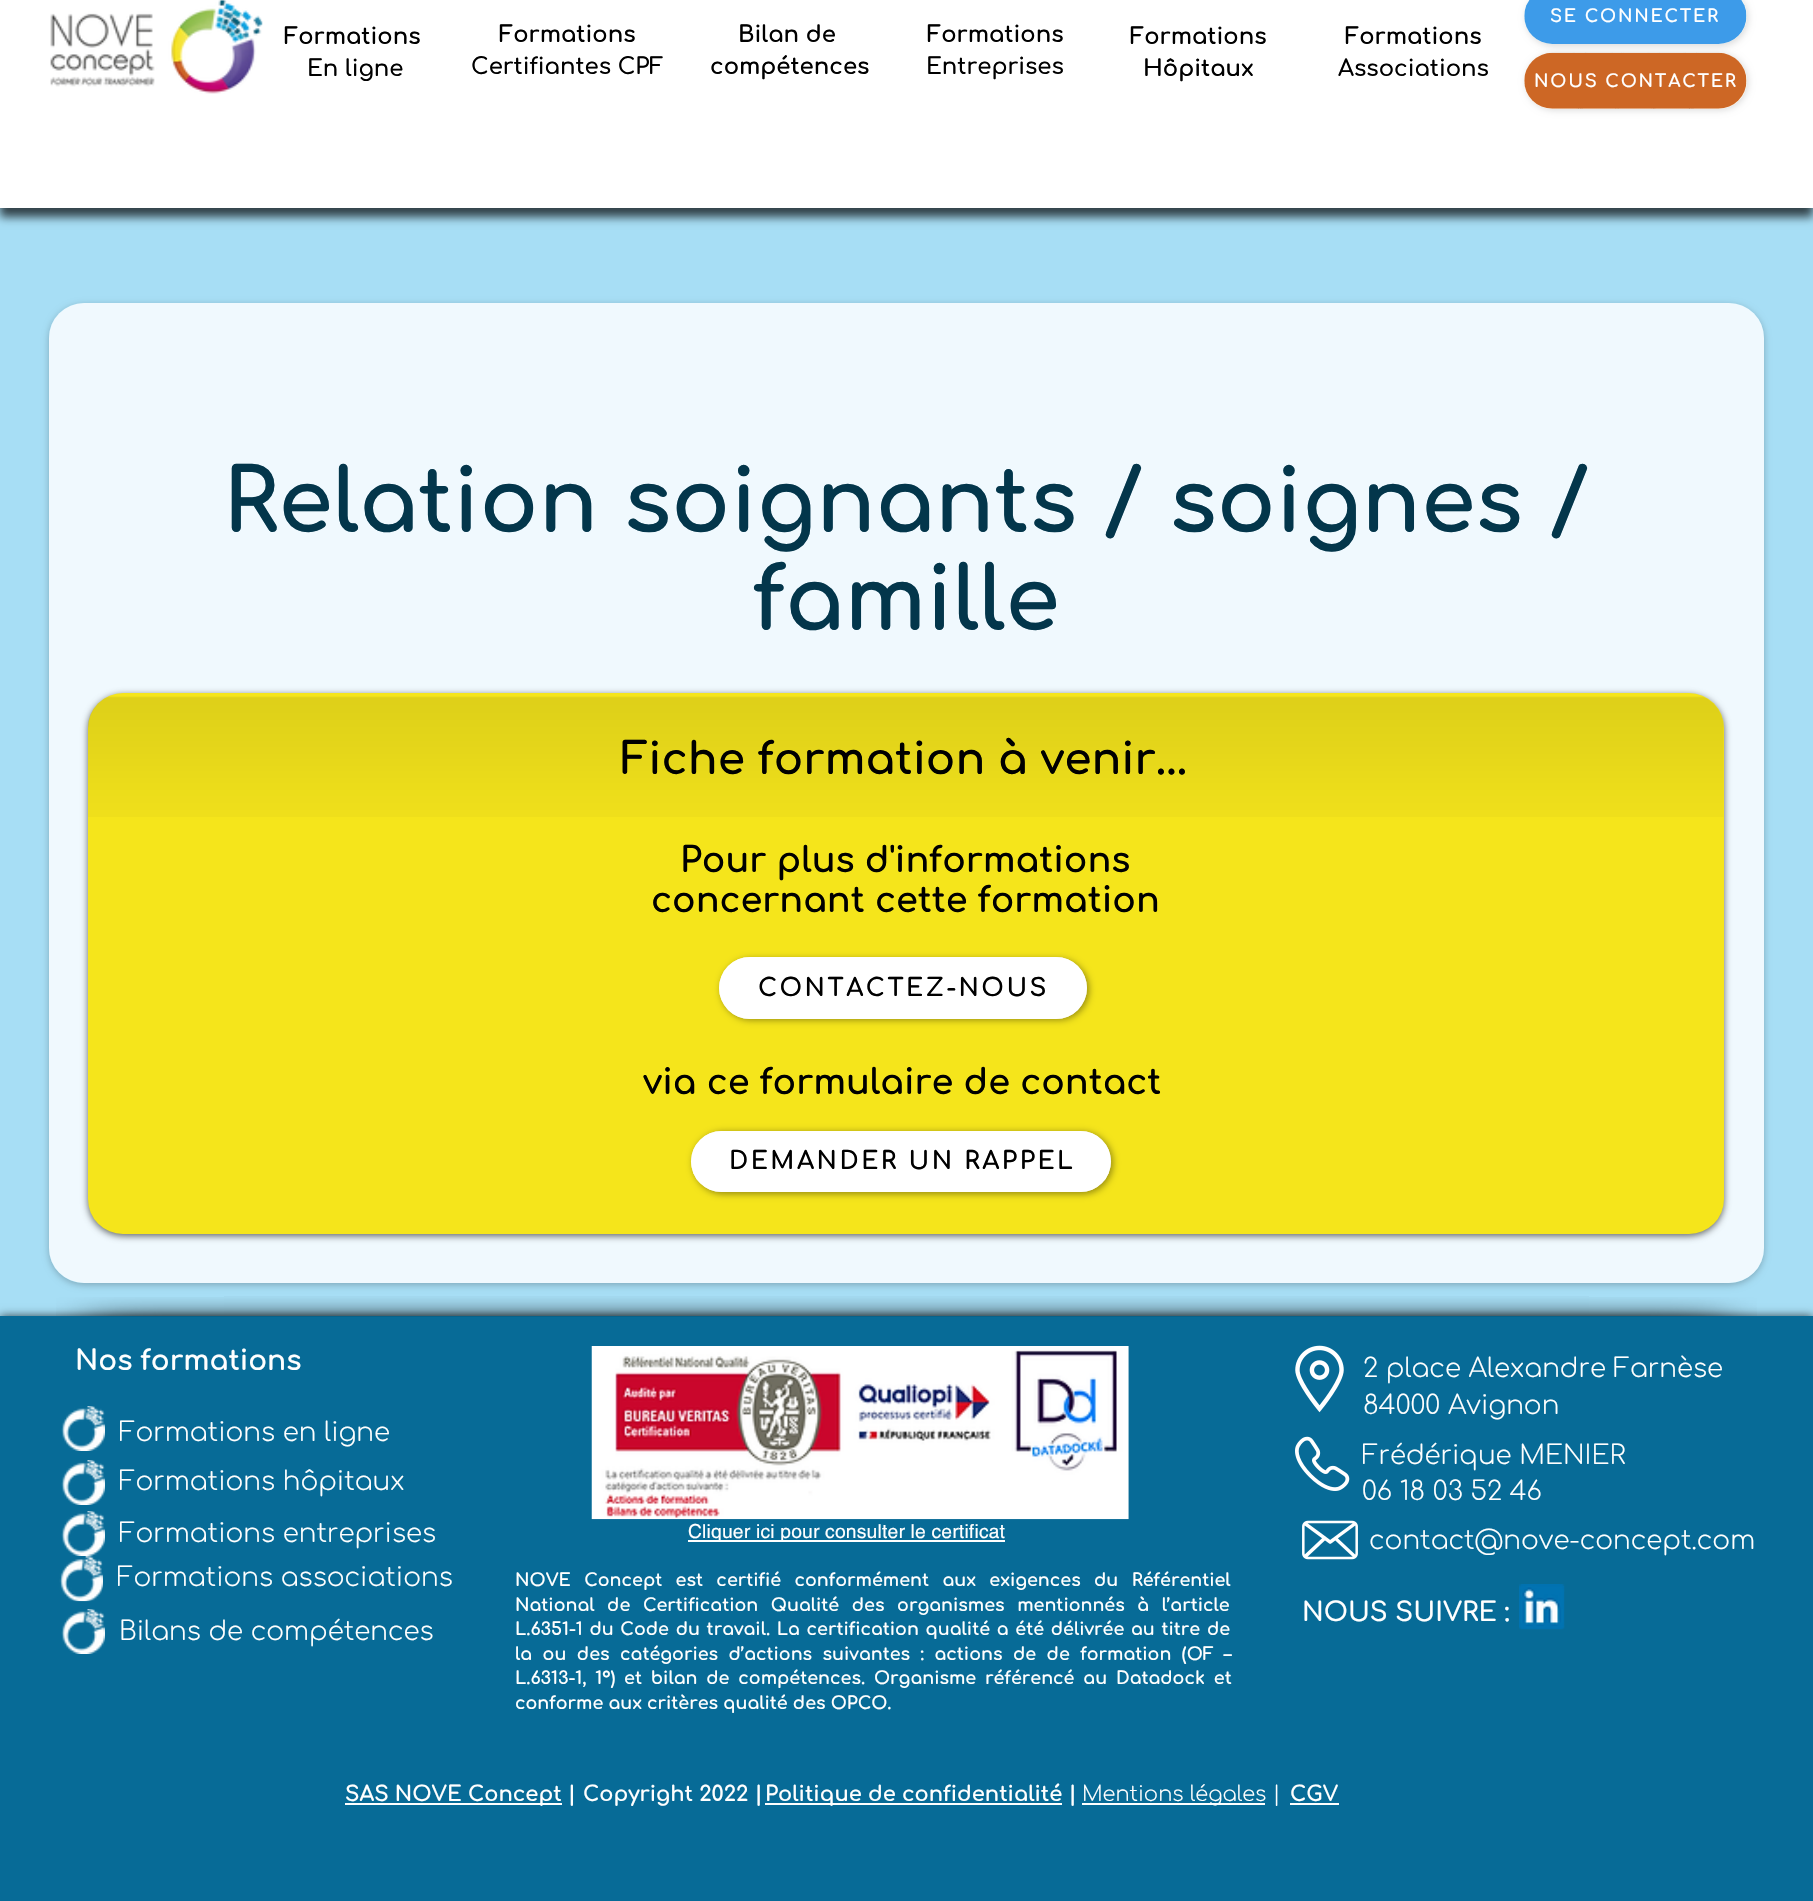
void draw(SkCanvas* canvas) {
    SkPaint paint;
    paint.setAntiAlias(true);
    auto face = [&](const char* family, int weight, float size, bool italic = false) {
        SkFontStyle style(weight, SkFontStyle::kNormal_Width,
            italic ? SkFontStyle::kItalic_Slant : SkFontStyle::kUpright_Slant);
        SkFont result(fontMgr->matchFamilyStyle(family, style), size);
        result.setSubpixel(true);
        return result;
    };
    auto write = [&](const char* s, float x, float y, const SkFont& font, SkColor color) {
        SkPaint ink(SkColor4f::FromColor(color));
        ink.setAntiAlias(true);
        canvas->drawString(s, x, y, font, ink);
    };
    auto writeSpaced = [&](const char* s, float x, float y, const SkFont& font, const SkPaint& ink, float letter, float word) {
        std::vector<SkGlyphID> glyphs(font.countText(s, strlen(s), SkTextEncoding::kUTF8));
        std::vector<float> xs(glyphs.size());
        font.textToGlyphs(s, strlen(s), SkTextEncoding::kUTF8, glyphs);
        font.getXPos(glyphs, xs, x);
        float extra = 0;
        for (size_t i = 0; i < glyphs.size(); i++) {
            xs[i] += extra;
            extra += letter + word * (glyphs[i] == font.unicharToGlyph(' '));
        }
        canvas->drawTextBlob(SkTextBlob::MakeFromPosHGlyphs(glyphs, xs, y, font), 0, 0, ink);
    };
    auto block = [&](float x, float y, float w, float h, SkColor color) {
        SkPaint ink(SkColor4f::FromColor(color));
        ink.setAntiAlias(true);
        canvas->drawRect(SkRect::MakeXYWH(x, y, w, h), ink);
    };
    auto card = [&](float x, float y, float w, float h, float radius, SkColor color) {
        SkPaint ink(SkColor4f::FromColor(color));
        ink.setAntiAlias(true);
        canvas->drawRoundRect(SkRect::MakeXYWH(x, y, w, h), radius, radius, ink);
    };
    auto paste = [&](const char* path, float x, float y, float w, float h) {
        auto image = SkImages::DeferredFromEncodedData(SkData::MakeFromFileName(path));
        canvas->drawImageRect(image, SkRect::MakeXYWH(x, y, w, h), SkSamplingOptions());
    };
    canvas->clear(SkColorSetRGB(167, 222, 245));
    paint.setColor(SkColorSetARGB(179, 0, 0, 0));
    paint.setMaskFilter(SkMaskFilter::MakeBlur(kNormal_SkBlurStyle, 4.5f));
    canvas->drawRect(SkRect::MakeXYWH(0, -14, 1813, 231), paint);
    paint.setMaskFilter(nullptr);
    block(0, 0, 1813, 208, SK_ColorWHITE);
    paste("pic1.png", 50, 0, 213, 94);
    auto kFont1 = face("Comfortaa", 700, 22.75f);
    write("Formations", 284, 44, kFont1, SK_ColorBLACK);
    auto kFont2 = face("Comfortaa", 600, 22.75f);
    write("En ligne", 307, 76, kFont2, SK_ColorBLACK);
    write("Formations", 499, 42, kFont1, SK_ColorBLACK);
    write("Certifiantes CPF", 471, 74, kFont2, SK_ColorBLACK);
    write("Bilan de", 738, 42, kFont1, SK_ColorBLACK);
    write("compétences", 710, 74, kFont1, SK_ColorBLACK);
    write("Formations", 927, 42, kFont1, SK_ColorBLACK);
    write("Entreprises", 926, 74, kFont2, SK_ColorBLACK);
    write("Formations", 1130, 44, kFont1, SK_ColorBLACK);
    write("Hôpitaux", 1143, 76, kFont1, SK_ColorBLACK);
    write("Formations", 1345, 44, kFont1, SK_ColorBLACK);
    write("Associations", 1338, 76, kFont2, SK_ColorBLACK);
    paint.setColor(SkColorSetARGB(38, 0, 0, 0));
    paint.setMaskFilter(SkMaskFilter::MakeBlur(kNormal_SkBlurStyle, 3.5f));
    canvas->drawRoundRect(SkRect::MakeXYWH(1526, -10, 222, 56), 28, 28, paint);
    paint.setMaskFilter(nullptr);
    card(1524, -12, 223, 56, 28, SkColorSetRGB(255, 253, 244));
    paste("pic2.png", 1524, 0, 223, 44);
    auto kFont3 = face("Comfortaa", 700, 17.5f);
    paint.setColor(SK_ColorWHITE);
    writeSpaced("SE CONNECTER", 1550, 22, kFont3, paint, 1.75f, 0);
    paint.setColor(SkColorSetARGB(38, 0, 0, 0));
    paint.setMaskFilter(SkMaskFilter::MakeBlur(kNormal_SkBlurStyle, 3.5f));
    canvas->drawRoundRect(SkRect::MakeXYWH(1526, 54, 222, 56), 28, 28, paint);
    paint.setMaskFilter(nullptr);
    card(1524, 53, 223, 56, 28, SkColorSetRGB(255, 253, 244));
    paste("pic3.png", 1524, 52, 223, 57);
    paint.setColor(SK_ColorWHITE);
    writeSpaced("NOUS CONTACTER", 1534, 87, kFont3, paint, 1.75f, 0);
    canvas->save();
    canvas->clipPath(SkPathBuilder(SkPathFillType::kEvenOdd).moveTo(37, 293).lineTo(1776, 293).lineTo(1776, 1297).lineTo(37, 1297).close().moveTo(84, 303).lineTo(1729, 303).cubicTo(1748.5f, 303, 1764, 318.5f, 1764, 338).lineTo(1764, 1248).cubicTo(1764, 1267.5f, 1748.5f, 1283, 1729, 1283).lineTo(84, 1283).cubicTo(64.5f, 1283, 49, 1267.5f, 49, 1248).lineTo(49, 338).cubicTo(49, 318.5f, 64.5f, 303, 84, 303).close().detach(), true);
    paint.setColor(SkColorSetARGB(61, 0, 0, 0));
    paint.setMaskFilter(SkMaskFilter::MakeBlur(kNormal_SkBlurStyle, 3.5f));
    canvas->drawRoundRect(SkRect::MakeXYWH(49, 305, 1715, 980), 35, 35, paint);
    paint.setMaskFilter(nullptr);
    canvas->restore();
    card(49, 303, 1715, 980, 35, SkColorSetARGB(209, 255, 255, 255));
    auto kFont4 = face("Comfortaa", 700, 87.5f);
    write("Relation soignants / soignes /", 223, 532, kFont4, SkColorSetRGB(3, 54, 75));
    write("famille", 753, 630, kFont4, SkColorSetRGB(3, 54, 75));
    paint.setColor(SkColorSetARGB(153, 0, 0, 0));
    paint.setMaskFilter(SkMaskFilter::MakeBlur(kNormal_SkBlurStyle, 3.5f));
    canvas->drawRoundRect(SkRect::MakeXYWH(88, 695, 1636, 541), 35, 35, paint);
    paint.setMaskFilter(nullptr);
    card(88, 693, 1636, 541, 35, SkColorSetRGB(245, 229, 27));
    paste("pic4.png", 88, 696, 1636, 121);
    auto kFont5 = face("Comfortaa", 700, 43.75f);
    write("Fiche formation à venir...", 621, 774, kFont5, SK_ColorBLACK);
    auto kFont6 = face("Comfortaa", 700, 35);
    write("Pour plus d'informations", 680, 872, kFont6, SK_ColorBLACK);
    write("concernant cette formation", 651, 912, kFont6, SK_ColorBLACK);
    paint.setColor(SkColorSetARGB(102, 0, 0, 0));
    paint.setMaskFilter(SkMaskFilter::MakeBlur(kNormal_SkBlurStyle, 3.5f));
    canvas->drawRoundRect(SkRect::MakeXYWH(721, 959, 368, 61), 30.5f, 30.5f, paint);
    paint.setMaskFilter(nullptr);
    card(719, 957, 368, 62, 31, SK_ColorWHITE);
    card(719, 957, 368, 62, 31, SkColorSetARGB(191, 255, 255, 255));
    auto kFont7 = face("Comfortaa", 700, 24.5f);
    paint.setColor(SK_ColorBLACK);
    writeSpaced("CONTACTEZ-NOUS", 758, 996, kFont7, paint, 2.5f, 0);
    write("via ce formulaire de contact", 643, 1094, kFont6, SK_ColorBLACK);
    paint.setColor(SkColorSetARGB(102, 0, 0, 0));
    paint.setMaskFilter(SkMaskFilter::MakeBlur(kNormal_SkBlurStyle, 3.5f));
    canvas->drawRoundRect(SkRect::MakeXYWH(693, 1132, 420, 62), 31, 31, paint);
    paint.setMaskFilter(nullptr);
    card(691, 1131, 420, 61, 30.5f, SK_ColorWHITE);
    card(691, 1131, 420, 61, 30.5f, SkColorSetARGB(191, 255, 255, 255));
    paint.setColor(SK_ColorBLACK);
    writeSpaced("DEMANDER UN RAPPEL", 729, 1169, kFont7, paint, 2.5f, 0);
    paint.setColor(SkColorSetARGB(179, 0, 0, 0));
    paint.setMaskFilter(SkMaskFilter::MakeBlur(kNormal_SkBlurStyle, 4.5f));
    canvas->drawRect(SkRect::MakeXYWH(0, 1316, 1813, 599), paint);
    paint.setMaskFilter(nullptr);
    block(0, 1316, 1813, 585, SkColorSetRGB(7, 107, 151));
    paste("pic5.png", 56, 1297, 168, 20);
    paste("pic6.png", 224, 1296, 1365, 21);
    paste("pic7.png", 1589, 1297, 168, 20);
    auto kFont8 = face("Comfortaa", 700, 28);
    write("Nos formations", 75, 1370, kFont8, SK_ColorWHITE);
    paste("pic8.png", 591, 1346, 538, 174);
    paste("pic9.png", 1295, 1345, 49, 68);
    auto kFont9 = face("Comfortaa", 300, 26.25f);
    write("2 place Alexandre Farnèse", 1363, 1377, kFont9, SK_ColorWHITE);
    write("84000 Avignon", 1363, 1414, kFont9, SK_ColorWHITE);
    paste("pic10.png", 61, 1406, 44, 45);
    write("Formations en ligne", 119, 1441, kFont9, SK_ColorWHITE);
    paste("pic11.png", 1295, 1436, 55, 55);
    write("Frédérique MENIER", 1362, 1464, kFont9, SK_ColorWHITE);
    write("06 18 03 52 46", 1362, 1500, kFont9, SK_ColorWHITE);
    paste("pic12.png", 61, 1460, 44, 45);
    write("Formations hôpitaux", 119, 1490, kFont9, SK_ColorWHITE);
    paste("pic10.png", 61, 1511, 44, 45);
    write("Formations entreprises", 119, 1542, kFont9, SK_ColorWHITE);
    paste("pic13.png", 1302, 1520, 56, 40);
    write("contact@nove-concept.com", 1369, 1549, kFont9, SK_ColorWHITE);
    paste("pic14.png", 59, 1556, 44, 46);
    write("Formations associations", 117, 1586, kFont9, SK_ColorWHITE);
    paint.setColor(SK_ColorWHITE);
    writeSpaced("NOVE Concept est certifié conformément aux exigences du Référentiel", 515, 1586, kFont3, paint, 0, 8.25f);
    writeSpaced("National de Certification Qualité des organismes mentionnés à l’article", 515, 1611, kFont3, paint, 0, 7.5f);
    writeSpaced("L.6351-1 du Code du travail. La certification qualité a été délivrée au titre de", 515, 1635, kFont3, paint, 0, 1.6f);
    writeSpaced("la ou des catégories d’actions suivantes : actions de de formation (OF –", 515, 1660, kFont3, paint, 0, 5.4f);
    writeSpaced("L.6313-1, 1°) et bilan de compétences. Organisme référencé au Datadock et", 515, 1684, kFont3, paint, 0, 3.75f);
    write("conforme aux critères qualité des OPCO.", 515, 1709, kFont3, SK_ColorWHITE);
    auto kFont10 = face("Comfortaa", 600, 26.25f);
    write("NOUS SUIVRE :", 1302, 1621, kFont10, SK_ColorWHITE);
    paste("pic15.png", 1519, 1584, 46, 46);
    paste("pic10.png", 61, 1609, 44, 45);
    write("Bilans de compétences", 119, 1640, kFont9, SK_ColorWHITE);
    block(345, 1803, 217, 2, SK_ColorWHITE);
    auto kFont11 = face("Comfortaa", 700, 21);
    write("SAS NOVE Concept |", 345, 1801, kFont11, SK_ColorWHITE);
    write("Copyright 2022 |", 583, 1801, kFont11, SK_ColorWHITE);
    block(765, 1803, 297, 2, SK_ColorWHITE);
    write("Politique de confidentialité |", 765, 1801, kFont11, SK_ColorWHITE);
    block(1082, 1803, 183, 2, SK_ColorWHITE);
    auto kFont12 = face("Comfortaa", 300, 21);
    write("Mentions légales |", 1082, 1801, kFont12, SK_ColorWHITE);
    write("CGV", 1290, 1801, kFont11, SK_ColorWHITE);
    block(1290, 1803, 49, 2, SK_ColorWHITE);
    block(688, 1540, 317, 2, SK_ColorWHITE);
    auto kFont13 = face("helvetica", 400, 19.25f);
    writeSpaced("Cliquer ici pour consulter le certificat", 688, 1538, kFont13, paint, 0.2f, 0);
}
